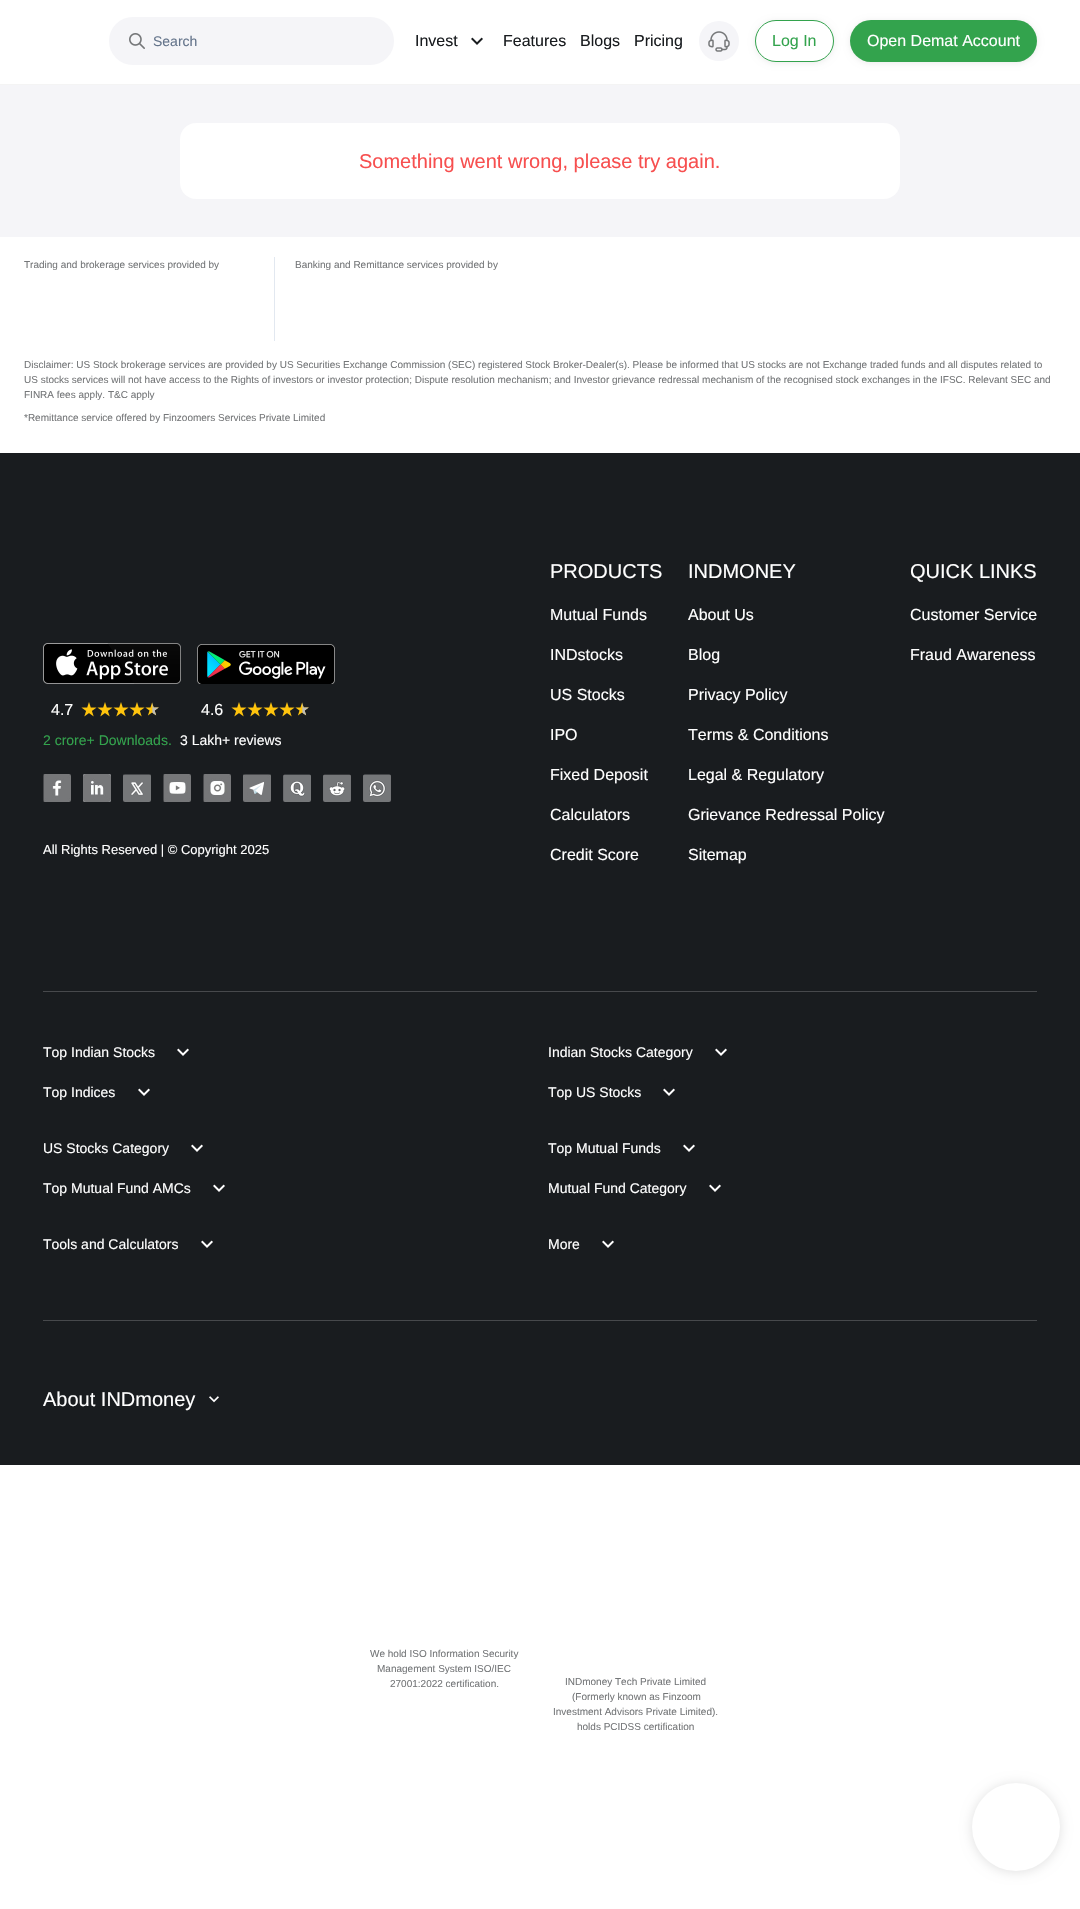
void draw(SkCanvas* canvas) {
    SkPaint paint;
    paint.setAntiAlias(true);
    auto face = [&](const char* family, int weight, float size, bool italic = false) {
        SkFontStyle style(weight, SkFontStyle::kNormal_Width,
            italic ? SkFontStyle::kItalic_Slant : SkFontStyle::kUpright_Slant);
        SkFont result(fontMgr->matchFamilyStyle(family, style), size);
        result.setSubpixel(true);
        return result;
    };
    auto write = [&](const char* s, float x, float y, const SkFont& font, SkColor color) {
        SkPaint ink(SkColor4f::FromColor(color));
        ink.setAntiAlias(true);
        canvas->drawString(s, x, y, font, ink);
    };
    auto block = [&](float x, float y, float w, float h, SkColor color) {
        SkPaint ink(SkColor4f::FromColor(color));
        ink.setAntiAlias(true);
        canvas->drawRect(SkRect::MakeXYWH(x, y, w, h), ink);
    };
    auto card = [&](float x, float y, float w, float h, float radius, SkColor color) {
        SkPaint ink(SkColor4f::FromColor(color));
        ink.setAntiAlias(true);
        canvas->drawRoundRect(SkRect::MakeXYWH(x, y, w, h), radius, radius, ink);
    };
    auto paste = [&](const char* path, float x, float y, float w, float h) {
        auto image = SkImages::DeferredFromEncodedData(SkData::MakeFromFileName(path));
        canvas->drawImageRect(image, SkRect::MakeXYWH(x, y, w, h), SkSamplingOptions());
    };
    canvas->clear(SK_ColorWHITE);
    block(0, 84, 1080, 1, SkColorSetRGB(244, 244, 244));
    card(109, 17, 285, 48, 24, SkColorSetRGB(245, 245, 248));
    paste("pic1.png", 129, 33, 16, 16);
    auto kFont1 = face("Liberation Sans", 400, 14);
    write("Search", 153, 46, kFont1, SkColorSetRGB(100, 116, 139));
    auto kFont2 = face("Liberation Sans", 400, 16);
    write("Invest", 415, 46, kFont2, SkColorSetRGB(25, 28, 31));
    paste("pic2.png", 471, 37, 12, 8);
    write("Features", 503, 46, kFont2, SkColorSetRGB(25, 28, 31));
    write("Blogs", 580, 46, kFont2, SkColorSetRGB(25, 28, 31));
    write("Pricing", 634, 46, kFont2, SkColorSetRGB(25, 28, 31));
    paint.setColor(SkColorSetRGB(245, 245, 248));
    canvas->drawCircle(719, 41, 20, paint);
    paste("pic3.png", 708, 31, 22, 21);
    paint.setColor(SkColorSetARGB(20, 0, 0, 0));
    paint.setMaskFilter(SkMaskFilter::MakeBlur(kNormal_SkBlurStyle, 3));
    canvas->drawRoundRect(SkRect::MakeXYWH(755, 21, 79, 42), 21, 21, paint);
    paint.setMaskFilter(nullptr);
    paint.setColor(SK_ColorWHITE);
    canvas->drawRoundRect(SkRect::MakeXYWH(755.5f, 20.5f, 78, 41), 20.5f, 20.5f, paint);
    paint.setStyle(SkPaint::kStroke_Style);
    paint.setStrokeWidth(1);
    paint.setColor(SkColorSetRGB(51, 163, 77));
    canvas->drawRoundRect(SkRect::MakeXYWH(755.5f, 20.5f, 78, 41), 20.5f, 20.5f, paint);
    write("Log In", 772, 46, kFont2, SkColorSetRGB(51, 163, 77));
    paint.setStyle(SkPaint::kFill_Style);
    paint.setColor(SkColorSetARGB(20, 0, 0, 0));
    paint.setMaskFilter(SkMaskFilter::MakeBlur(kNormal_SkBlurStyle, 3));
    canvas->drawRoundRect(SkRect::MakeXYWH(850, 21, 187, 42), 21, 21, paint);
    paint.setMaskFilter(nullptr);
    card(850, 20, 187, 42, 21, SkColorSetRGB(51, 163, 77));
    write("Open Demat Account", 867, 46, kFont2, SK_ColorWHITE);
    paint.setColor(SkColorSetARGB(31, 0, 0, 0));
    paint.setMaskFilter(SkMaskFilter::MakeBlur(kNormal_SkBlurStyle, 6));
    canvas->drawRoundRect(SkRect::MakeXYWH(972, 1784, 88, 88), 44, 44, paint);
    paint.setMaskFilter(nullptr);
    paint.setColor(SK_ColorWHITE);
    canvas->drawCircle(1016, 1827, 44, paint);
    block(0, 85, 1080, 152, SkColorSetRGB(245, 245, 248));
    card(180, 123, 720, 76, 16, SK_ColorWHITE);
    auto kFont3 = face("Liberation Sans", 400, 20);
    write("Something went wrong, please try again.", 359, 168, kFont3, SkColorSetRGB(247, 79, 79));
    auto kFont4 = face("Liberation Sans", 400, 10);
    write("Trading and brokerage services provided by", 24, 268, kFont4, SkColorSetRGB(117, 119, 121));
    block(274, 257, 1, 84, SkColorSetRGB(226, 232, 240));
    write("Banking and Remittance services provided by", 295, 268, kFont4, SkColorSetRGB(117, 119, 121));
    write("Disclaimer: US Stock brokerage services are provided by US Securities Exchange Commission (SEC) registered Stock Broker-Dealer(s). Please be informed that US stocks are not Exchange traded funds and all disputes related to", 24, 368, kFont4, SkColorSetRGB(117, 119, 121));
    write("US stocks services will not have access to the Rights of investors or investor protection; Dispute resolution mechanism; and Investor grievance redressal mechanism of the recognised stock exchanges in the IFSC. Relevant SEC and", 24, 383, kFont4, SkColorSetRGB(117, 119, 121));
    write("FINRA fees apply. T&C apply", 24, 398, kFont4, SkColorSetRGB(117, 119, 121));
    write("*Remittance service offered by Finzoomers Services Private Limited", 24, 421, kFont4, SkColorSetRGB(117, 119, 121));
    block(0, 453, 1080, 1012, SkColorSetRGB(25, 28, 31));
    paste("pic4.png", 43, 643, 138, 41);
    paste("pic5.png", 197, 644, 138, 40);
    write("4.7", 51, 715, kFont2, SK_ColorWHITE);
    paste("pic6.png", 81, 702, 16, 15);
    paste("pic6.png", 97, 702, 16, 15);
    paste("pic6.png", 113, 702, 16, 15);
    paste("pic6.png", 129, 702, 16, 15);
    paste("pic7.png", 145, 702, 14, 14);
    write("4.6", 201, 715, kFont2, SK_ColorWHITE);
    paste("pic6.png", 231, 702, 16, 15);
    paste("pic6.png", 247, 702, 16, 15);
    paste("pic6.png", 263, 702, 16, 15);
    paste("pic6.png", 279, 702, 16, 15);
    paste("pic7.png", 295, 702, 14, 14);
    write("2 crore+ Downloads.", 43, 745, kFont1, SkColorSetRGB(51, 163, 77));
    write("3 Lakh+ reviews", 180, 745, kFont1, SK_ColorWHITE);
    paste("pic8.png", 43, 774, 28, 28);
    paste("pic9.png", 83, 774, 28, 28);
    paste("pic10.png", 123, 774, 28, 28);
    paste("pic11.png", 163, 774, 28, 28);
    paste("pic12.png", 203, 774, 28, 28);
    paste("pic13.png", 243, 774, 28, 28);
    paste("pic14.png", 283, 774, 28, 28);
    paste("pic15.png", 323, 774, 28, 28);
    paste("pic16.png", 363, 774, 28, 28);
    auto kFont5 = face("Liberation Sans", 400, 13);
    write("All Rights Reserved | © Copyright 2025", 43, 854, kFont5, SK_ColorWHITE);
    write("PRODUCTS", 550, 578, kFont3, SK_ColorWHITE);
    write("Mutual Funds", 550, 620, kFont2, SK_ColorWHITE);
    write("INDstocks", 550, 660, kFont2, SK_ColorWHITE);
    write("US Stocks", 550, 700, kFont2, SK_ColorWHITE);
    write("IPO", 550, 740, kFont2, SK_ColorWHITE);
    write("Fixed Deposit", 550, 780, kFont2, SK_ColorWHITE);
    write("Calculators", 550, 820, kFont2, SK_ColorWHITE);
    write("Credit Score", 550, 860, kFont2, SK_ColorWHITE);
    write("INDMONEY", 688, 578, kFont3, SK_ColorWHITE);
    write("About Us", 688, 620, kFont2, SK_ColorWHITE);
    write("Blog", 688, 660, kFont2, SK_ColorWHITE);
    write("Privacy Policy", 688, 700, kFont2, SK_ColorWHITE);
    write("Terms & Conditions", 688, 740, kFont2, SK_ColorWHITE);
    write("Legal & Regulatory", 688, 780, kFont2, SK_ColorWHITE);
    write("Grievance Redressal Policy", 688, 820, kFont2, SK_ColorWHITE);
    write("Sitemap", 688, 860, kFont2, SK_ColorWHITE);
    write("QUICK LINKS", 910, 578, kFont3, SK_ColorWHITE);
    write("Customer Service", 910, 620, kFont2, SK_ColorWHITE);
    write("Fraud Awareness", 910, 660, kFont2, SK_ColorWHITE);
    block(43, 991, 994, 1, SkColorSetRGB(71, 73, 76));
    write("Top Indian Stocks", 43, 1057, kFont1, SK_ColorWHITE);
    paste("pic17.png", 177, 1048, 12, 8);
    write("Indian Stocks Category", 548, 1057, kFont1, SK_ColorWHITE);
    paste("pic17.png", 715, 1048, 12, 8);
    write("Top Indices", 43, 1097, kFont1, SK_ColorWHITE);
    paste("pic17.png", 138, 1088, 12, 8);
    write("Top US Stocks", 548, 1097, kFont1, SK_ColorWHITE);
    paste("pic17.png", 663, 1088, 12, 8);
    write("US Stocks Category", 43, 1153, kFont1, SK_ColorWHITE);
    paste("pic17.png", 191, 1144, 12, 8);
    write("Top Mutual Funds", 548, 1153, kFont1, SK_ColorWHITE);
    paste("pic17.png", 683, 1144, 12, 8);
    write("Top Mutual Fund AMCs", 43, 1193, kFont1, SK_ColorWHITE);
    paste("pic17.png", 213, 1184, 12, 8);
    write("Mutual Fund Category", 548, 1193, kFont1, SK_ColorWHITE);
    paste("pic17.png", 709, 1184, 12, 8);
    write("Tools and Calculators", 43, 1249, kFont1, SK_ColorWHITE);
    paste("pic17.png", 201, 1240, 12, 8);
    write("More", 548, 1249, kFont1, SK_ColorWHITE);
    paste("pic17.png", 602, 1240, 12, 8);
    block(43, 1320, 994, 1, SkColorSetRGB(71, 73, 76));
    write("About INDmoney", 43, 1406, kFont3, SK_ColorWHITE);
    paste("pic18.png", 209, 1396, 10, 7);
    write("We hold ISO Information Security", 370, 1657, kFont4, SkColorSetRGB(117, 119, 121));
    write("Management System ISO/IEC", 377, 1672, kFont4, SkColorSetRGB(117, 119, 121));
    write("27001:2022 certification.", 390, 1687, kFont4, SkColorSetRGB(117, 119, 121));
    write("INDmoney Tech Private Limited", 565, 1685, kFont4, SkColorSetRGB(117, 119, 121));
    write("(Formerly known as Finzoom", 572, 1700, kFont4, SkColorSetRGB(117, 119, 121));
    write("Investment Advisors Private Limited).", 553, 1715, kFont4, SkColorSetRGB(117, 119, 121));
    write("holds PCIDSS certification", 577, 1730, kFont4, SkColorSetRGB(117, 119, 121));
}
